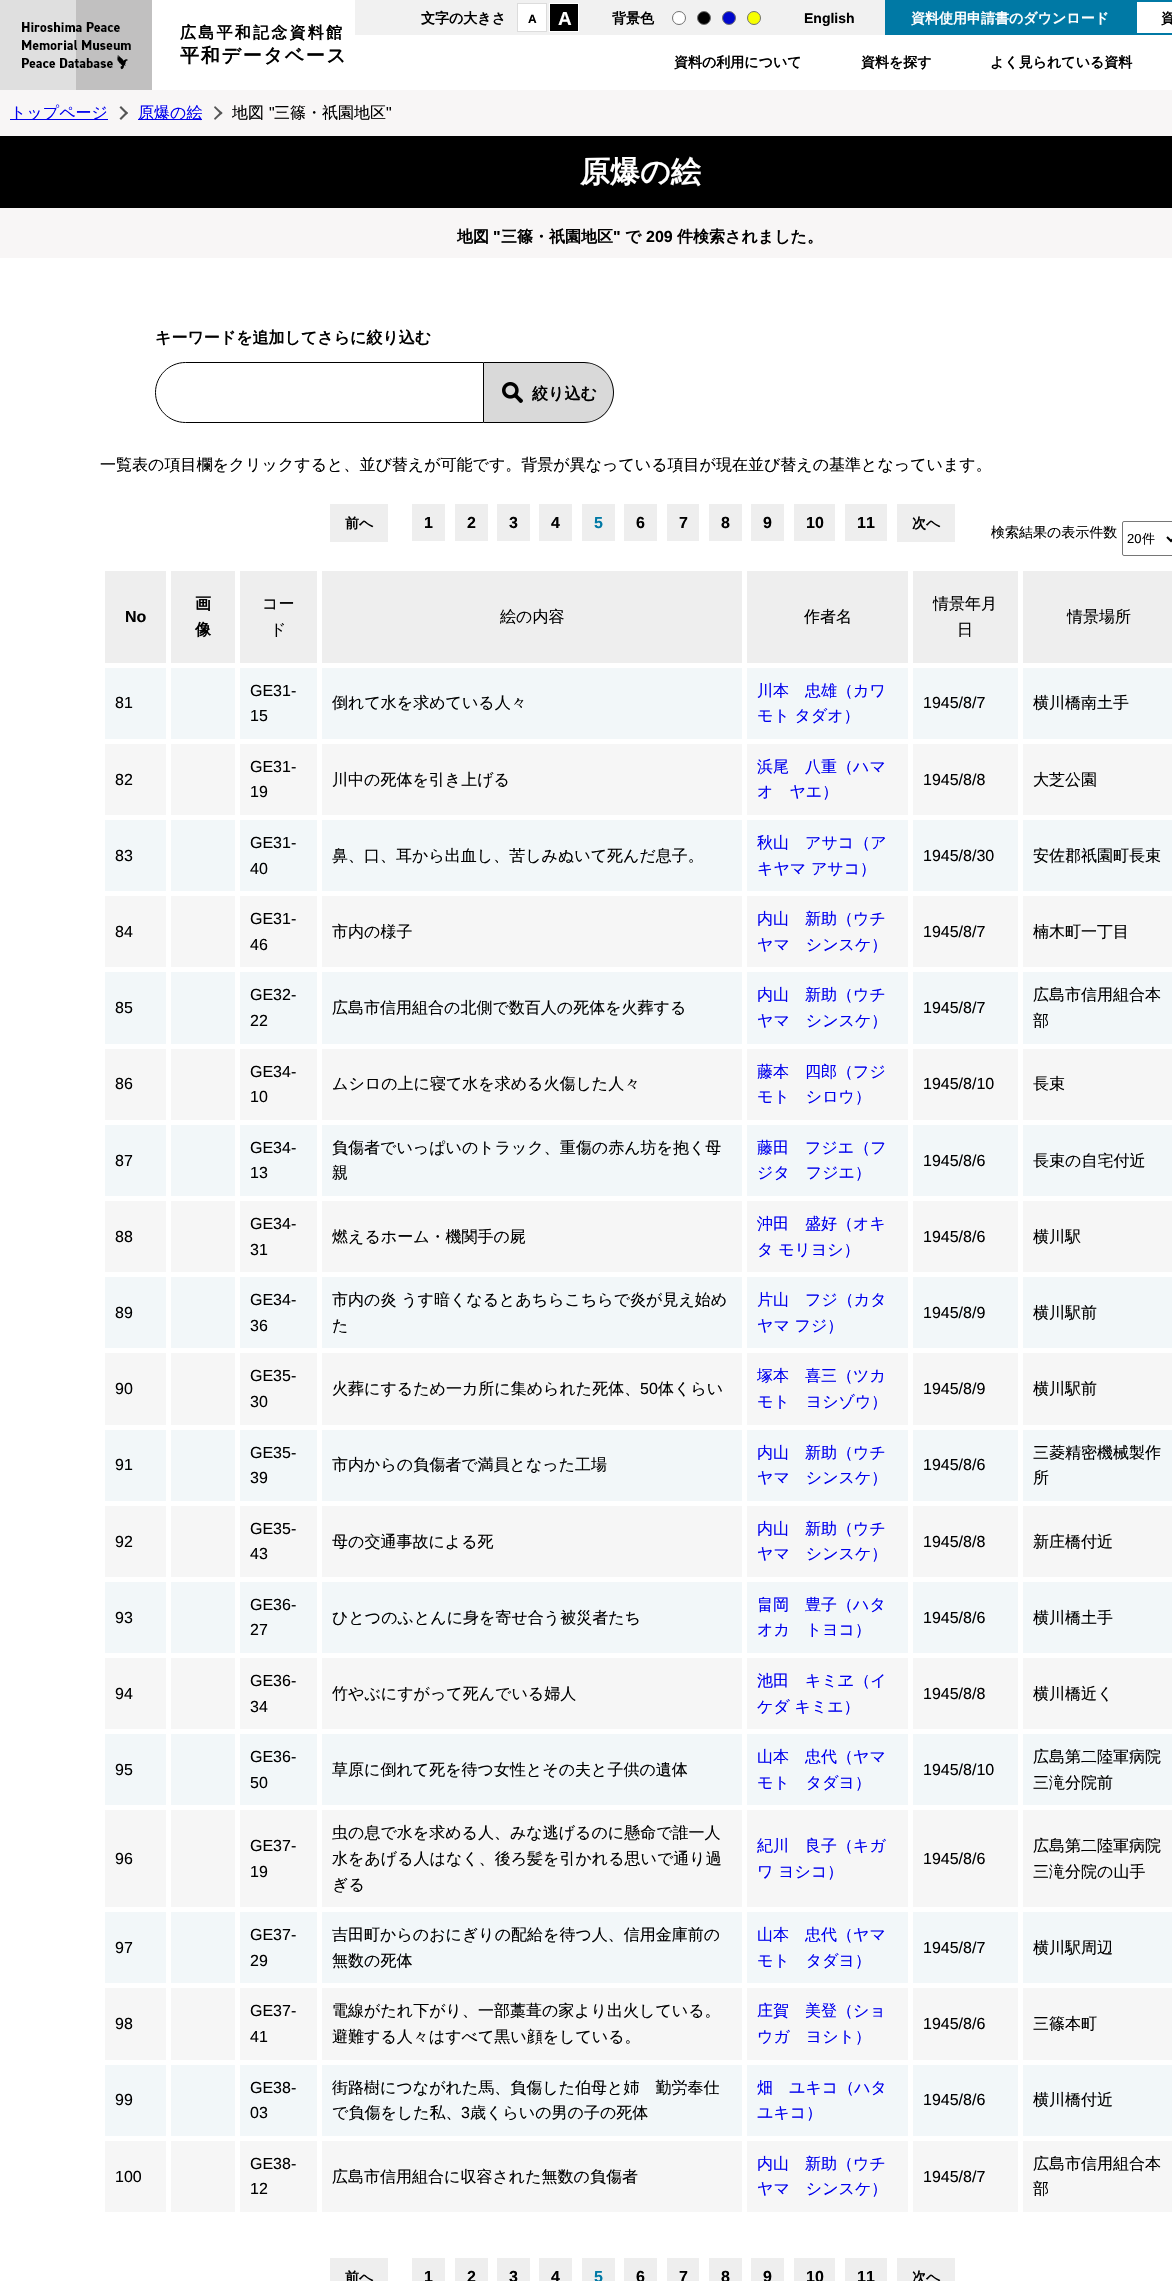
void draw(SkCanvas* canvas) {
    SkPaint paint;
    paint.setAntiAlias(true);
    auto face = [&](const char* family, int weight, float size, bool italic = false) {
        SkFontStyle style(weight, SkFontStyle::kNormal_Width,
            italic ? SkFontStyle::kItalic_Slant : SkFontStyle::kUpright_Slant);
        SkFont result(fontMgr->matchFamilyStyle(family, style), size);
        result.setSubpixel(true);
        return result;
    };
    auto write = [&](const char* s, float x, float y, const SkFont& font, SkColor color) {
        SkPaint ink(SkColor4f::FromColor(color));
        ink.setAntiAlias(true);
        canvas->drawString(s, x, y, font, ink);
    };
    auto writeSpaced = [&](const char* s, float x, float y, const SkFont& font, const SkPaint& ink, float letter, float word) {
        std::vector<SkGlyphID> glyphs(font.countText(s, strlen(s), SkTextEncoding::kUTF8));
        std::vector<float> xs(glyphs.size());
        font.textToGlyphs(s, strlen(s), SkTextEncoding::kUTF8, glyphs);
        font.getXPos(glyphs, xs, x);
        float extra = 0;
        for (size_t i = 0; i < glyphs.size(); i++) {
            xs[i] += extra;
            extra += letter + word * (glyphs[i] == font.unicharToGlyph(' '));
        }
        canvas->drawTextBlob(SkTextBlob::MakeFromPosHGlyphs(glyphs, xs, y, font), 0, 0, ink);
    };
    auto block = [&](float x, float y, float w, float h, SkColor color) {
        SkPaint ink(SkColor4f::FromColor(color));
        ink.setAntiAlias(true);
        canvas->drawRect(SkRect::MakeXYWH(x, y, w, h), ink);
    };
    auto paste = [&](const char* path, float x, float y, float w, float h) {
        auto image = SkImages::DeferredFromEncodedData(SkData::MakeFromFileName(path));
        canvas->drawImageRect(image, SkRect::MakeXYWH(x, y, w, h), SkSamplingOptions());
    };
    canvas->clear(SK_ColorWHITE);
    paste("pic1.png", 0, 0, 152, 90);
    auto kFont1 = face("WenQuanYi Zen Hei", 700, 16);
    paint.setColor(SK_ColorBLACK);
    writeSpaced("広島平和記念資料館", 180, 38, kFont1, paint, 2.25f, 0);
    auto kFont2 = face("WenQuanYi Zen Hei", 700, 19);
    writeSpaced("平和データベース", 180, 62, kFont2, paint, 1.75f, 0);
    block(355, 0, 530, 35, SkColorSetRGB(241, 241, 241));
    auto kFont3 = face("WenQuanYi Zen Hei", 700, 14);
    write("文字の大きさ", 421, 23, kFont3, SK_ColorBLACK);
    paint.setColor(SK_ColorWHITE);
    canvas->drawRect(SkRect::MakeXYWH(517.5f, 3.5f, 29, 28), paint);
    paint.setStyle(SkPaint::kStroke_Style);
    paint.setStrokeWidth(1);
    paint.setColor(SkColorSetRGB(220, 220, 220));
    canvas->drawRect(SkRect::MakeXYWH(517.5f, 3.5f, 29, 28), paint);
    auto kFont4 = face("Liberation Sans", 700, 12);
    write("A", 528, 23, kFont4, SK_ColorBLACK);
    paint.setStyle(SkPaint::kFill_Style);
    paint.setColor(SK_ColorBLACK);
    canvas->drawRect(SkRect::MakeXYWH(549.5f, 3.5f, 29, 28), paint);
    paint.setStyle(SkPaint::kStroke_Style);
    paint.setColor(SK_ColorWHITE);
    canvas->drawRect(SkRect::MakeXYWH(549.5f, 3.5f, 29, 28), paint);
    auto kFont5 = face("Liberation Sans", 700, 19);
    write("A", 558, 25, kFont5, SK_ColorWHITE);
    write("背景色", 612, 23, kFont3, SK_ColorBLACK);
    paint.setStyle(SkPaint::kFill_Style);
    canvas->drawCircle(679, 18, 6.5f, paint);
    paint.setStyle(SkPaint::kStroke_Style);
    paint.setColor(SkColorSetRGB(112, 112, 112));
    canvas->drawCircle(679, 18, 6.5f, paint);
    paint.setStyle(SkPaint::kFill_Style);
    paint.setColor(SK_ColorBLACK);
    canvas->drawCircle(704, 18, 6.5f, paint);
    paint.setStyle(SkPaint::kStroke_Style);
    paint.setColor(SkColorSetRGB(112, 112, 112));
    canvas->drawCircle(704, 18, 6.5f, paint);
    paint.setStyle(SkPaint::kFill_Style);
    paint.setColor(SkColorSetRGB(0, 7, 204));
    canvas->drawCircle(729, 18, 6.5f, paint);
    paint.setStyle(SkPaint::kStroke_Style);
    paint.setColor(SkColorSetRGB(112, 112, 112));
    canvas->drawCircle(729, 18, 6.5f, paint);
    paint.setStyle(SkPaint::kFill_Style);
    paint.setColor(SkColorSetRGB(247, 255, 0));
    canvas->drawCircle(754, 18, 6.5f, paint);
    paint.setStyle(SkPaint::kStroke_Style);
    paint.setColor(SkColorSetRGB(112, 112, 112));
    canvas->drawCircle(754, 18, 6.5f, paint);
    auto kFont6 = face("Liberation Sans", 700, 14);
    write("English", 804, 23, kFont6, SK_ColorBLACK);
    block(885, 0, 250, 35, SkColorSetRGB(0, 121, 165));
    write("資料使用申請書のダウンロード", 911, 23, kFont3, SK_ColorWHITE);
    paint.setStrokeWidth(2);
    paint.setColor(SkColorSetRGB(0, 121, 165));
    canvas->drawRect(SkRect::MakeXYWH(1136, 1, 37, 33), paint);
    write("資", 1161, 23, kFont3, SK_ColorBLACK);
    write("資料の利用について", 674, 67, kFont3, SK_ColorBLACK);
    write("資料を探す", 861, 67, kFont3, SK_ColorBLACK);
    write("よく見られている資料", 990, 67, kFont3, SK_ColorBLACK);
    block(0, 90, 1172, 46, SkColorSetRGB(248, 246, 246));
    block(10, 119, 98, 1, SkColorSetRGB(0, 0, 238));
    auto kFont7 = face("WenQuanYi Zen Hei", 500, 16);
    write("トップページ", 10, 118, kFont7, SkColorSetRGB(0, 0, 238));
    paint.setStyle(SkPaint::kFill_Style);
    paint.setColor(SkColorSetRGB(85, 85, 85));
    canvas->drawPath(SkPathBuilder().moveTo(119.5f, 107.5f).lineTo(121, 106).lineTo(128, 113).lineTo(126.5f, 114.5f).close().detach(), paint);
    canvas->drawPath(SkPathBuilder().moveTo(119.5f, 118.5f).lineTo(126.5f, 111.5f).lineTo(128, 113).lineTo(121, 120).close().detach(), paint);
    block(138, 119, 64, 1, SkColorSetRGB(0, 0, 238));
    write("原爆の絵", 138, 118, kFont7, SkColorSetRGB(0, 0, 238));
    canvas->drawPath(SkPathBuilder().moveTo(214, 107.5f).lineTo(215, 106).lineTo(222.5f, 113).lineTo(221, 114.5f).close().detach(), paint);
    canvas->drawPath(SkPathBuilder().moveTo(214, 118.5f).lineTo(221, 111.5f).lineTo(222.5f, 113).lineTo(215, 120).close().detach(), paint);
    write("地図", 232, 118, kFont7, SK_ColorBLACK);
    auto kFont8 = face("Liberation Sans", 400, 16);
    write("\"", 269, 118, kFont8, SK_ColorBLACK);
    write("三篠・祇園地区", 274, 118, kFont7, SK_ColorBLACK);
    write("\"", 386, 118, kFont8, SK_ColorBLACK);
    block(0, 136, 1172, 72, SK_ColorBLACK);
    auto kFont9 = face("WenQuanYi Zen Hei", 700, 30);
    write("原爆の絵", 580, 182, kFont9, SK_ColorWHITE);
    block(0, 208, 1172, 50, SkColorSetRGB(248, 246, 246));
    write("地図", 457, 242, kFont1, SK_ColorBLACK);
    auto kFont10 = face("Liberation Sans", 700, 16);
    write("\"", 493, 242, kFont10, SK_ColorBLACK);
    write("三篠・祇園地区", 501, 242, kFont1, SK_ColorBLACK);
    write("\"", 613, 242, kFont10, SK_ColorBLACK);
    write("で", 625, 242, kFont1, SK_ColorBLACK);
    write("209", 646, 242, kFont10, SK_ColorBLACK);
    write("件検索されました。", 677, 242, kFont1, SK_ColorBLACK);
    write("キーワードを追加してさらに絞り込む", 155, 343, kFont1, SK_ColorBLACK);
    paint.setStyle(SkPaint::kStroke_Style);
    paint.setStrokeWidth(1);
    paint.setColor(SK_ColorBLACK);
    canvas->drawPath(SkPathBuilder().moveTo(185.5f, 362.5f).lineTo(483.5f, 362.5f).lineTo(483.5f, 422.5f).lineTo(185.5f, 422.5f).cubicTo(169, 422.5f, 155.5f, 409, 155.5f, 392.5f).cubicTo(155.5f, 376, 169, 362.5f, 185.5f, 362.5f).close().detach(), paint);
    paint.setStyle(SkPaint::kFill_Style);
    paint.setColor(SkColorSetRGB(217, 217, 217));
    canvas->drawPath(SkPathBuilder().moveTo(484, 362).lineTo(583.5f, 362).cubicTo(600.5f, 362, 614, 375.5f, 614, 392.5f).cubicTo(614, 409.5f, 600.5f, 423, 583.5f, 423).lineTo(484, 423).close().detach(), paint);
    paste("pic2.png", 502, 382, 21, 21);
    paint.setColor(SK_ColorBLACK);
    canvas->drawPath(SkPathBuilder(SkPathFillType::kEvenOdd).moveTo(484, 362).lineTo(584, 362).cubicTo(600, 362, 614, 376, 614, 392).cubicTo(614, 409, 600, 423, 584, 423).lineTo(484, 423).close().moveTo(484, 363).lineTo(584, 363).cubicTo(600, 363, 613, 376, 613, 392).cubicTo(613, 409, 600, 422, 584, 422).lineTo(484, 422).close().detach(), paint);
    write("絞り込む", 532, 399, kFont1, SK_ColorBLACK);
    write("一覧表の項目欄をクリックすると、並び替えが可能です。背景が異なっている項目が現在並び替えの基準となっています。", 100, 470, kFont7, SK_ColorBLACK);
    block(330, 504, 58, 38, SkColorSetRGB(238, 238, 238));
    write("前へ", 345, 528, kFont3, SK_ColorBLACK);
    block(412, 504, 33, 37, SkColorSetRGB(238, 238, 238));
    write("1", 424, 528, kFont10, SK_ColorBLACK);
    block(455, 504, 33, 37, SkColorSetRGB(238, 238, 238));
    write("2", 467, 528, kFont10, SK_ColorBLACK);
    block(497, 504, 33, 37, SkColorSetRGB(238, 238, 238));
    write("3", 509, 528, kFont10, SK_ColorBLACK);
    block(539, 504, 33, 37, SkColorSetRGB(238, 238, 238));
    write("4", 551, 528, kFont10, SK_ColorBLACK);
    block(582, 504, 33, 37, SkColorSetRGB(238, 238, 238));
    write("5", 594, 528, kFont10, SkColorSetRGB(0, 121, 165));
    block(624, 504, 33, 37, SkColorSetRGB(238, 238, 238));
    write("6", 636, 528, kFont10, SK_ColorBLACK);
    block(667, 504, 32, 37, SkColorSetRGB(238, 238, 238));
    write("7", 679, 528, kFont10, SK_ColorBLACK);
    block(709, 504, 33, 37, SkColorSetRGB(238, 238, 238));
    write("8", 721, 528, kFont10, SK_ColorBLACK);
    block(751, 504, 33, 37, SkColorSetRGB(238, 238, 238));
    write("9", 763, 528, kFont10, SK_ColorBLACK);
    block(794, 504, 41, 37, SkColorSetRGB(238, 238, 238));
    write("10", 806, 528, kFont10, SK_ColorBLACK);
    block(845, 504, 42, 37, SkColorSetRGB(238, 238, 238));
    write("11", 857, 528, kFont10, SK_ColorBLACK);
    block(897, 504, 58, 38, SkColorSetRGB(238, 238, 238));
    write("次へ", 912, 528, kFont3, SK_ColorBLACK);
    auto kFont11 = face("WenQuanYi Zen Hei", 500, 14);
    write("検索結果の表示件数", 991, 537, kFont11, SK_ColorBLACK);
    paint.setStyle(SkPaint::kStroke_Style);
    paint.setColor(SkColorSetRGB(118, 118, 118));
    canvas->drawRoundRect(SkRect::MakeXYWH(1122.5f, 521.5f, 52, 34), 1.5f, 1.5f, paint);
    paint.setStrokeWidth(2);
    paint.setColor(SK_ColorBLACK);
    canvas->drawPath(SkPathBuilder().moveTo(1167, 537).lineTo(1171, 541).lineTo(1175, 537).detach(), paint);
    auto kFont12 = face("Liberation Sans", 400, 13);
    write("20", 1127, 543, kFont12, SK_ColorBLACK);
    auto kFont13 = face("WenQuanYi Zen Hei", 500, 13);
    write("件", 1142, 543, kFont13, SK_ColorBLACK);
    block(105, 571, 61, 92, SkColorSetRGB(238, 238, 238));
    write("No", 125, 622, kFont10, SK_ColorBLACK);
    block(171, 571, 64, 92, SkColorSetRGB(238, 238, 238));
    write("画", 195, 609, kFont1, SK_ColorBLACK);
    write("像", 195, 635, kFont1, SK_ColorBLACK);
    block(240, 571, 77, 92, SkColorSetRGB(238, 238, 238));
    write("コー", 262, 609, kFont7, SK_ColorBLACK);
    write("ド", 270, 635, kFont7, SK_ColorBLACK);
    block(322, 571, 420, 92, SkColorSetRGB(238, 238, 238));
    write("絵の内容", 500, 622, kFont7, SK_ColorBLACK);
    block(747, 571, 161, 92, SkColorSetRGB(238, 238, 238));
    write("作者名", 804, 622, kFont7, SK_ColorBLACK);
    block(913, 571, 105, 92, SkColorSetRGB(238, 238, 238));
    write("情景年月", 933, 609, kFont7, SK_ColorBLACK);
    write("日", 957, 635, kFont7, SK_ColorBLACK);
    block(1023, 571, 149, 92, SkColorSetRGB(238, 238, 238));
    write("情景場所", 1067, 622, kFont7, SK_ColorBLACK);
    block(105, 668, 61, 71, SkColorSetRGB(242, 247, 249));
    write("81", 115, 708, kFont8, SK_ColorBLACK);
    block(171, 668, 64, 71, SkColorSetRGB(242, 247, 249));
    block(240, 668, 77, 71, SkColorSetRGB(242, 247, 249));
    write("GE31-", 250, 696, kFont8, SK_ColorBLACK);
    write("15", 250, 721, kFont8, SK_ColorBLACK);
    block(322, 668, 420, 71, SkColorSetRGB(242, 247, 249));
    write("倒れて水を求めている人々", 332, 708, kFont7, SK_ColorBLACK);
    block(747, 668, 161, 71, SkColorSetRGB(242, 247, 249));
    write("川本　忠雄（カワ", 757, 696, kFont7, SkColorSetRGB(0, 0, 238));
    write("モト タダオ）", 757, 721, kFont7, SkColorSetRGB(0, 0, 238));
    block(913, 668, 105, 71, SkColorSetRGB(242, 247, 249));
    write("1945/8/7", 923, 708, kFont8, SK_ColorBLACK);
    block(1023, 668, 149, 71, SkColorSetRGB(242, 247, 249));
    write("横川橋南土手", 1033, 708, kFont7, SK_ColorBLACK);
    block(105, 744, 61, 71, SkColorSetRGB(246, 246, 246));
    write("82", 115, 785, kFont8, SK_ColorBLACK);
    block(171, 744, 64, 71, SkColorSetRGB(246, 246, 246));
    block(240, 744, 77, 71, SkColorSetRGB(246, 246, 246));
    write("GE31-", 250, 772, kFont8, SK_ColorBLACK);
    write("19", 250, 797, kFont8, SK_ColorBLACK);
    block(322, 744, 420, 71, SkColorSetRGB(246, 246, 246));
    write("川中の死体を引き上げる", 332, 785, kFont7, SK_ColorBLACK);
    block(747, 744, 161, 71, SkColorSetRGB(246, 246, 246));
    write("浜尾　八重（ハマ", 757, 772, kFont7, SkColorSetRGB(0, 0, 238));
    write("オ　ヤエ）", 757, 797, kFont7, SkColorSetRGB(0, 0, 238));
    block(913, 744, 105, 71, SkColorSetRGB(246, 246, 246));
    write("1945/8/8", 923, 785, kFont8, SK_ColorBLACK);
    block(1023, 744, 149, 71, SkColorSetRGB(246, 246, 246));
    write("大芝公園", 1033, 785, kFont7, SK_ColorBLACK);
    block(105, 820, 61, 71, SkColorSetRGB(242, 247, 249));
    write("83", 115, 861, kFont8, SK_ColorBLACK);
    block(171, 820, 64, 71, SkColorSetRGB(242, 247, 249));
    block(240, 820, 77, 71, SkColorSetRGB(242, 247, 249));
    write("GE31-", 250, 848, kFont8, SK_ColorBLACK);
    write("40", 250, 874, kFont8, SK_ColorBLACK);
    block(322, 820, 420, 71, SkColorSetRGB(242, 247, 249));
    write("鼻、口、耳から出血し、苦しみぬいて死んだ息子。", 332, 861, kFont7, SK_ColorBLACK);
    block(747, 820, 161, 71, SkColorSetRGB(242, 247, 249));
    write("秋山　アサコ（ア", 757, 848, kFont7, SkColorSetRGB(0, 0, 238));
    write("キヤマ アサコ）", 757, 874, kFont7, SkColorSetRGB(0, 0, 238));
    block(913, 820, 105, 71, SkColorSetRGB(242, 247, 249));
    write("1945/8/30", 923, 861, kFont8, SK_ColorBLACK);
    block(1023, 820, 149, 71, SkColorSetRGB(242, 247, 249));
    write("安佐郡祇園町長束", 1033, 861, kFont7, SK_ColorBLACK);
    block(105, 896, 61, 71, SkColorSetRGB(246, 246, 246));
    write("84", 115, 937, kFont8, SK_ColorBLACK);
    block(171, 896, 64, 71, SkColorSetRGB(246, 246, 246));
    block(240, 896, 77, 71, SkColorSetRGB(246, 246, 246));
    write("GE31-", 250, 924, kFont8, SK_ColorBLACK);
    write("46", 250, 950, kFont8, SK_ColorBLACK);
    block(322, 896, 420, 71, SkColorSetRGB(246, 246, 246));
    write("市内の様子", 332, 937, kFont7, SK_ColorBLACK);
    block(747, 896, 161, 71, SkColorSetRGB(246, 246, 246));
    write("内山　新助（ウチ", 757, 924, kFont7, SkColorSetRGB(0, 0, 238));
    write("ヤマ　シンスケ）", 757, 950, kFont7, SkColorSetRGB(0, 0, 238));
    block(913, 896, 105, 71, SkColorSetRGB(246, 246, 246));
    write("1945/8/7", 923, 937, kFont8, SK_ColorBLACK);
    block(1023, 896, 149, 71, SkColorSetRGB(246, 246, 246));
    write("楠木町一丁目", 1033, 937, kFont7, SK_ColorBLACK);
    block(105, 972, 61, 72, SkColorSetRGB(242, 247, 249));
    write("85", 115, 1013, kFont8, SK_ColorBLACK);
    block(171, 972, 64, 72, SkColorSetRGB(242, 247, 249));
    block(240, 972, 77, 72, SkColorSetRGB(242, 247, 249));
    write("GE32-", 250, 1000, kFont8, SK_ColorBLACK);
    write("22", 250, 1026, kFont8, SK_ColorBLACK);
    block(322, 972, 420, 72, SkColorSetRGB(242, 247, 249));
    write("広島市信用組合の北側で数百人の死体を火葬する", 332, 1013, kFont7, SK_ColorBLACK);
    block(747, 972, 161, 72, SkColorSetRGB(242, 247, 249));
    write("内山　新助（ウチ", 757, 1000, kFont7, SkColorSetRGB(0, 0, 238));
    write("ヤマ　シンスケ）", 757, 1026, kFont7, SkColorSetRGB(0, 0, 238));
    block(913, 972, 105, 72, SkColorSetRGB(242, 247, 249));
    write("1945/8/7", 923, 1013, kFont8, SK_ColorBLACK);
    block(1023, 972, 149, 72, SkColorSetRGB(242, 247, 249));
    write("広島市信用組合本", 1033, 1000, kFont7, SK_ColorBLACK);
    write("部", 1033, 1026, kFont7, SK_ColorBLACK);
    block(105, 1049, 61, 71, SkColorSetRGB(246, 246, 246));
    write("86", 115, 1089, kFont8, SK_ColorBLACK);
    block(171, 1049, 64, 71, SkColorSetRGB(246, 246, 246));
    block(240, 1049, 77, 71, SkColorSetRGB(246, 246, 246));
    write("GE34-", 250, 1077, kFont8, SK_ColorBLACK);
    write("10", 250, 1102, kFont8, SK_ColorBLACK);
    block(322, 1049, 420, 71, SkColorSetRGB(246, 246, 246));
    write("ムシロの上に寝て水を求める火傷した人々", 332, 1089, kFont7, SK_ColorBLACK);
    block(747, 1049, 161, 71, SkColorSetRGB(246, 246, 246));
    write("藤本　四郎（フジ", 757, 1077, kFont7, SkColorSetRGB(0, 0, 238));
    write("モト　シロウ）", 757, 1102, kFont7, SkColorSetRGB(0, 0, 238));
    block(913, 1049, 105, 71, SkColorSetRGB(246, 246, 246));
    write("1945/8/10", 923, 1089, kFont8, SK_ColorBLACK);
    block(1023, 1049, 149, 71, SkColorSetRGB(246, 246, 246));
    write("長束", 1033, 1089, kFont7, SK_ColorBLACK);
    block(105, 1125, 61, 71, SkColorSetRGB(242, 247, 249));
    write("87", 115, 1166, kFont8, SK_ColorBLACK);
    block(171, 1125, 64, 71, SkColorSetRGB(242, 247, 249));
    block(240, 1125, 77, 71, SkColorSetRGB(242, 247, 249));
    write("GE34-", 250, 1153, kFont8, SK_ColorBLACK);
    write("13", 250, 1178, kFont8, SK_ColorBLACK);
    block(322, 1125, 420, 71, SkColorSetRGB(242, 247, 249));
    write("負傷者でいっぱいのトラック、重傷の赤ん坊を抱く母", 332, 1153, kFont7, SK_ColorBLACK);
    write("親", 332, 1178, kFont7, SK_ColorBLACK);
    block(747, 1125, 161, 71, SkColorSetRGB(242, 247, 249));
    write("藤田　フジエ（フ", 757, 1153, kFont7, SkColorSetRGB(0, 0, 238));
    write("ジタ　フジエ）", 757, 1178, kFont7, SkColorSetRGB(0, 0, 238));
    block(913, 1125, 105, 71, SkColorSetRGB(242, 247, 249));
    write("1945/8/6", 923, 1166, kFont8, SK_ColorBLACK);
    block(1023, 1125, 149, 71, SkColorSetRGB(242, 247, 249));
    write("長束の自宅付近", 1033, 1166, kFont7, SK_ColorBLACK);
    block(105, 1201, 61, 71, SkColorSetRGB(246, 246, 246));
    write("88", 115, 1242, kFont8, SK_ColorBLACK);
    block(171, 1201, 64, 71, SkColorSetRGB(246, 246, 246));
    block(240, 1201, 77, 71, SkColorSetRGB(246, 246, 246));
    write("GE34-", 250, 1229, kFont8, SK_ColorBLACK);
    write("31", 250, 1255, kFont8, SK_ColorBLACK);
    block(322, 1201, 420, 71, SkColorSetRGB(246, 246, 246));
    write("燃えるホーム・機関手の屍", 332, 1242, kFont7, SK_ColorBLACK);
    block(747, 1201, 161, 71, SkColorSetRGB(246, 246, 246));
    write("沖田　盛好（オキ", 757, 1229, kFont7, SkColorSetRGB(0, 0, 238));
    write("タ モリヨシ）", 757, 1255, kFont7, SkColorSetRGB(0, 0, 238));
    block(913, 1201, 105, 71, SkColorSetRGB(246, 246, 246));
    write("1945/8/6", 923, 1242, kFont8, SK_ColorBLACK);
    block(1023, 1201, 149, 71, SkColorSetRGB(246, 246, 246));
    write("横川駅", 1033, 1242, kFont7, SK_ColorBLACK);
    block(105, 1277, 61, 71, SkColorSetRGB(242, 247, 249));
    write("89", 115, 1318, kFont8, SK_ColorBLACK);
    block(171, 1277, 64, 71, SkColorSetRGB(242, 247, 249));
    block(240, 1277, 77, 71, SkColorSetRGB(242, 247, 249));
    write("GE34-", 250, 1305, kFont8, SK_ColorBLACK);
    write("36", 250, 1331, kFont8, SK_ColorBLACK);
    block(322, 1277, 420, 71, SkColorSetRGB(242, 247, 249));
    write("市内の炎 うす暗くなるとあちらこちらで炎が見え始め", 332, 1305, kFont7, SK_ColorBLACK);
    write("た", 332, 1331, kFont7, SK_ColorBLACK);
    block(747, 1277, 161, 71, SkColorSetRGB(242, 247, 249));
    write("片山　フジ（カタ", 757, 1305, kFont7, SkColorSetRGB(0, 0, 238));
    write("ヤマ フジ）", 757, 1331, kFont7, SkColorSetRGB(0, 0, 238));
    block(913, 1277, 105, 71, SkColorSetRGB(242, 247, 249));
    write("1945/8/9", 923, 1318, kFont8, SK_ColorBLACK);
    block(1023, 1277, 149, 71, SkColorSetRGB(242, 247, 249));
    write("横川駅前", 1033, 1318, kFont7, SK_ColorBLACK);
    block(105, 1353, 61, 72, SkColorSetRGB(246, 246, 246));
    write("90", 115, 1394, kFont8, SK_ColorBLACK);
    block(171, 1353, 64, 72, SkColorSetRGB(246, 246, 246));
    block(240, 1353, 77, 72, SkColorSetRGB(246, 246, 246));
    write("GE35-", 250, 1381, kFont8, SK_ColorBLACK);
    write("30", 250, 1407, kFont8, SK_ColorBLACK);
    block(322, 1353, 420, 72, SkColorSetRGB(246, 246, 246));
    write("火葬にするため一カ所に集められた死体、", 332, 1394, kFont7, SK_ColorBLACK);
    write("50", 640, 1394, kFont8, SK_ColorBLACK);
    write("体くらい", 658, 1394, kFont7, SK_ColorBLACK);
    block(747, 1353, 161, 72, SkColorSetRGB(246, 246, 246));
    write("塚本　喜三（ツカ", 757, 1381, kFont7, SkColorSetRGB(0, 0, 238));
    write("モト　ヨシゾウ）", 757, 1407, kFont7, SkColorSetRGB(0, 0, 238));
    block(913, 1353, 105, 72, SkColorSetRGB(246, 246, 246));
    write("1945/8/9", 923, 1394, kFont8, SK_ColorBLACK);
    block(1023, 1353, 149, 72, SkColorSetRGB(246, 246, 246));
    write("横川駅前", 1033, 1394, kFont7, SK_ColorBLACK);
    block(105, 1430, 61, 71, SkColorSetRGB(242, 247, 249));
    write("91", 115, 1470, kFont8, SK_ColorBLACK);
    block(171, 1430, 64, 71, SkColorSetRGB(242, 247, 249));
    block(240, 1430, 77, 71, SkColorSetRGB(242, 247, 249));
    write("GE35-", 250, 1458, kFont8, SK_ColorBLACK);
    write("39", 250, 1483, kFont8, SK_ColorBLACK);
    block(322, 1430, 420, 71, SkColorSetRGB(242, 247, 249));
    write("市内からの負傷者で満員となった工場", 332, 1470, kFont7, SK_ColorBLACK);
    block(747, 1430, 161, 71, SkColorSetRGB(242, 247, 249));
    write("内山　新助（ウチ", 757, 1458, kFont7, SkColorSetRGB(0, 0, 238));
    write("ヤマ　シンスケ）", 757, 1483, kFont7, SkColorSetRGB(0, 0, 238));
    block(913, 1430, 105, 71, SkColorSetRGB(242, 247, 249));
    write("1945/8/6", 923, 1470, kFont8, SK_ColorBLACK);
    block(1023, 1430, 149, 71, SkColorSetRGB(242, 247, 249));
    write("三菱精密機械製作", 1033, 1458, kFont7, SK_ColorBLACK);
    write("所", 1033, 1483, kFont7, SK_ColorBLACK);
    block(105, 1506, 61, 71, SkColorSetRGB(246, 246, 246));
    write("92", 115, 1547, kFont8, SK_ColorBLACK);
    block(171, 1506, 64, 71, SkColorSetRGB(246, 246, 246));
    block(240, 1506, 77, 71, SkColorSetRGB(246, 246, 246));
    write("GE35-", 250, 1534, kFont8, SK_ColorBLACK);
    write("43", 250, 1559, kFont8, SK_ColorBLACK);
    block(322, 1506, 420, 71, SkColorSetRGB(246, 246, 246));
    write("母の交通事故による死", 332, 1547, kFont7, SK_ColorBLACK);
    block(747, 1506, 161, 71, SkColorSetRGB(246, 246, 246));
    write("内山　新助（ウチ", 757, 1534, kFont7, SkColorSetRGB(0, 0, 238));
    write("ヤマ　シンスケ）", 757, 1559, kFont7, SkColorSetRGB(0, 0, 238));
    block(913, 1506, 105, 71, SkColorSetRGB(246, 246, 246));
    write("1945/8/8", 923, 1547, kFont8, SK_ColorBLACK);
    block(1023, 1506, 149, 71, SkColorSetRGB(246, 246, 246));
    write("新庄橋付近", 1033, 1547, kFont7, SK_ColorBLACK);
    block(105, 1582, 61, 71, SkColorSetRGB(242, 247, 249));
    write("93", 115, 1623, kFont8, SK_ColorBLACK);
    block(171, 1582, 64, 71, SkColorSetRGB(242, 247, 249));
    block(240, 1582, 77, 71, SkColorSetRGB(242, 247, 249));
    write("GE36-", 250, 1610, kFont8, SK_ColorBLACK);
    write("27", 250, 1635, kFont8, SK_ColorBLACK);
    block(322, 1582, 420, 71, SkColorSetRGB(242, 247, 249));
    write("ひとつのふとんに身を寄せ合う被災者たち", 332, 1623, kFont7, SK_ColorBLACK);
    block(747, 1582, 161, 71, SkColorSetRGB(242, 247, 249));
    write("畠岡　豊子（ハタ", 757, 1610, kFont7, SkColorSetRGB(0, 0, 238));
    write("オカ　トヨコ）", 757, 1635, kFont7, SkColorSetRGB(0, 0, 238));
    block(913, 1582, 105, 71, SkColorSetRGB(242, 247, 249));
    write("1945/8/6", 923, 1623, kFont8, SK_ColorBLACK);
    block(1023, 1582, 149, 71, SkColorSetRGB(242, 247, 249));
    write("横川橋土手", 1033, 1623, kFont7, SK_ColorBLACK);
    block(105, 1658, 61, 71, SkColorSetRGB(246, 246, 246));
    write("94", 115, 1699, kFont8, SK_ColorBLACK);
    block(171, 1658, 64, 71, SkColorSetRGB(246, 246, 246));
    block(240, 1658, 77, 71, SkColorSetRGB(246, 246, 246));
    write("GE36-", 250, 1686, kFont8, SK_ColorBLACK);
    write("34", 250, 1712, kFont8, SK_ColorBLACK);
    block(322, 1658, 420, 71, SkColorSetRGB(246, 246, 246));
    write("竹やぶにすがって死んでいる婦人", 332, 1699, kFont7, SK_ColorBLACK);
    block(747, 1658, 161, 71, SkColorSetRGB(246, 246, 246));
    write("池田　キミヱ（イ", 757, 1686, kFont7, SkColorSetRGB(0, 0, 238));
    write("ケダ キミエ）", 757, 1712, kFont7, SkColorSetRGB(0, 0, 238));
    block(913, 1658, 105, 71, SkColorSetRGB(246, 246, 246));
    write("1945/8/8", 923, 1699, kFont8, SK_ColorBLACK);
    block(1023, 1658, 149, 71, SkColorSetRGB(246, 246, 246));
    write("横川橋近く", 1033, 1699, kFont7, SK_ColorBLACK);
    block(105, 1734, 61, 71, SkColorSetRGB(242, 247, 249));
    write("95", 115, 1775, kFont8, SK_ColorBLACK);
    block(171, 1734, 64, 71, SkColorSetRGB(242, 247, 249));
    block(240, 1734, 77, 71, SkColorSetRGB(242, 247, 249));
    write("GE36-", 250, 1762, kFont8, SK_ColorBLACK);
    write("50", 250, 1788, kFont8, SK_ColorBLACK);
    block(322, 1734, 420, 71, SkColorSetRGB(242, 247, 249));
    write("草原に倒れて死を待つ女性とその夫と子供の遺体", 332, 1775, kFont7, SK_ColorBLACK);
    block(747, 1734, 161, 71, SkColorSetRGB(242, 247, 249));
    write("山本　忠代（ヤマ", 757, 1762, kFont7, SkColorSetRGB(0, 0, 238));
    write("モト　タダヨ）", 757, 1788, kFont7, SkColorSetRGB(0, 0, 238));
    block(913, 1734, 105, 71, SkColorSetRGB(242, 247, 249));
    write("1945/8/10", 923, 1775, kFont8, SK_ColorBLACK);
    block(1023, 1734, 149, 71, SkColorSetRGB(242, 247, 249));
    write("広島第二陸軍病院", 1033, 1762, kFont7, SK_ColorBLACK);
    write("三滝分院前", 1033, 1788, kFont7, SK_ColorBLACK);
    block(105, 1810, 61, 97, SkColorSetRGB(246, 246, 246));
    write("96", 115, 1864, kFont8, SK_ColorBLACK);
    block(171, 1810, 64, 97, SkColorSetRGB(246, 246, 246));
    block(240, 1810, 77, 97, SkColorSetRGB(246, 246, 246));
    write("GE37-", 250, 1851, kFont8, SK_ColorBLACK);
    write("19", 250, 1877, kFont8, SK_ColorBLACK);
    block(322, 1810, 420, 97, SkColorSetRGB(246, 246, 246));
    write("虫の息で水を求める人、みな逃げるのに懸命で誰一人", 332, 1838, kFont7, SK_ColorBLACK);
    write("水をあげる人はなく、後ろ髪を引かれる思いで通り過", 332, 1864, kFont7, SK_ColorBLACK);
    write("ぎる", 332, 1890, kFont7, SK_ColorBLACK);
    block(747, 1810, 161, 97, SkColorSetRGB(246, 246, 246));
    write("紀川　良子（キガ", 757, 1851, kFont7, SkColorSetRGB(0, 0, 238));
    write("ワ ヨシコ）", 757, 1877, kFont7, SkColorSetRGB(0, 0, 238));
    block(913, 1810, 105, 97, SkColorSetRGB(246, 246, 246));
    write("1945/8/6", 923, 1864, kFont8, SK_ColorBLACK);
    block(1023, 1810, 149, 97, SkColorSetRGB(246, 246, 246));
    write("広島第二陸軍病院", 1033, 1851, kFont7, SK_ColorBLACK);
    write("三滝分院の山手", 1033, 1877, kFont7, SK_ColorBLACK);
    block(105, 1912, 61, 71, SkColorSetRGB(242, 247, 249));
    write("97", 115, 1953, kFont8, SK_ColorBLACK);
    block(171, 1912, 64, 71, SkColorSetRGB(242, 247, 249));
    block(240, 1912, 77, 71, SkColorSetRGB(242, 247, 249));
    write("GE37-", 250, 1940, kFont8, SK_ColorBLACK);
    write("29", 250, 1966, kFont8, SK_ColorBLACK);
    block(322, 1912, 420, 71, SkColorSetRGB(242, 247, 249));
    write("吉田町からのおにぎりの配給を待つ人、信用金庫前の", 332, 1940, kFont7, SK_ColorBLACK);
    write("無数の死体", 332, 1966, kFont7, SK_ColorBLACK);
    block(747, 1912, 161, 71, SkColorSetRGB(242, 247, 249));
    write("山本　忠代（ヤマ", 757, 1940, kFont7, SkColorSetRGB(0, 0, 238));
    write("モト　タダヨ）", 757, 1966, kFont7, SkColorSetRGB(0, 0, 238));
    block(913, 1912, 105, 71, SkColorSetRGB(242, 247, 249));
    write("1945/8/7", 923, 1953, kFont8, SK_ColorBLACK);
    block(1023, 1912, 149, 71, SkColorSetRGB(242, 247, 249));
    write("横川駅周辺", 1033, 1953, kFont7, SK_ColorBLACK);
    block(105, 1988, 61, 72, SkColorSetRGB(246, 246, 246));
    write("98", 115, 2029, kFont8, SK_ColorBLACK);
    block(171, 1988, 64, 72, SkColorSetRGB(246, 246, 246));
    block(240, 1988, 77, 72, SkColorSetRGB(246, 246, 246));
    write("GE37-", 250, 2016, kFont8, SK_ColorBLACK);
    write("41", 250, 2042, kFont8, SK_ColorBLACK);
    block(322, 1988, 420, 72, SkColorSetRGB(246, 246, 246));
    write("電線がたれ下がり、一部藁葺の家より出火している。", 332, 2016, kFont7, SK_ColorBLACK);
    write("避難する人々はすべて黒い顔をしている。", 332, 2042, kFont7, SK_ColorBLACK);
    block(747, 1988, 161, 72, SkColorSetRGB(246, 246, 246));
    write("庄賀　美登（ショ", 757, 2016, kFont7, SkColorSetRGB(0, 0, 238));
    write("ウガ　ヨシト）", 757, 2042, kFont7, SkColorSetRGB(0, 0, 238));
    block(913, 1988, 105, 72, SkColorSetRGB(246, 246, 246));
    write("1945/8/6", 923, 2029, kFont8, SK_ColorBLACK);
    block(1023, 1988, 149, 72, SkColorSetRGB(246, 246, 246));
    write("三篠本町", 1033, 2029, kFont7, SK_ColorBLACK);
    block(105, 2065, 61, 71, SkColorSetRGB(242, 247, 249));
    write("99", 115, 2105, kFont8, SK_ColorBLACK);
    block(171, 2065, 64, 71, SkColorSetRGB(242, 247, 249));
    block(240, 2065, 77, 71, SkColorSetRGB(242, 247, 249));
    write("GE38-", 250, 2093, kFont8, SK_ColorBLACK);
    write("03", 250, 2118, kFont8, SK_ColorBLACK);
    block(322, 2065, 420, 71, SkColorSetRGB(242, 247, 249));
    write("街路樹につながれた馬、負傷した伯母と姉　勤労奉仕", 332, 2093, kFont7, SK_ColorBLACK);
    write("で負傷をした私、", 332, 2118, kFont7, SK_ColorBLACK);
    write("3", 461, 2118, kFont8, SK_ColorBLACK);
    write("歳くらいの男の子の死体", 470, 2118, kFont7, SK_ColorBLACK);
    block(747, 2065, 161, 71, SkColorSetRGB(242, 247, 249));
    write("畑　ユキコ（ハタ", 757, 2093, kFont7, SkColorSetRGB(0, 0, 238));
    write("ユキコ）", 757, 2118, kFont7, SkColorSetRGB(0, 0, 238));
    block(913, 2065, 105, 71, SkColorSetRGB(242, 247, 249));
    write("1945/8/6", 923, 2105, kFont8, SK_ColorBLACK);
    block(1023, 2065, 149, 71, SkColorSetRGB(242, 247, 249));
    write("横川橋付近", 1033, 2105, kFont7, SK_ColorBLACK);
    block(105, 2141, 61, 71, SkColorSetRGB(246, 246, 246));
    write("100", 115, 2182, kFont8, SK_ColorBLACK);
    block(171, 2141, 64, 71, SkColorSetRGB(246, 246, 246));
    block(240, 2141, 77, 71, SkColorSetRGB(246, 246, 246));
    write("GE38-", 250, 2169, kFont8, SK_ColorBLACK);
    write("12", 250, 2194, kFont8, SK_ColorBLACK);
    block(322, 2141, 420, 71, SkColorSetRGB(246, 246, 246));
    write("広島市信用組合に収容された無数の負傷者", 332, 2182, kFont7, SK_ColorBLACK);
    block(747, 2141, 161, 71, SkColorSetRGB(246, 246, 246));
    write("内山　新助（ウチ", 757, 2169, kFont7, SkColorSetRGB(0, 0, 238));
    write("ヤマ　シンスケ）", 757, 2194, kFont7, SkColorSetRGB(0, 0, 238));
    block(913, 2141, 105, 71, SkColorSetRGB(246, 246, 246));
    write("1945/8/7", 923, 2182, kFont8, SK_ColorBLACK);
    block(1023, 2141, 149, 71, SkColorSetRGB(246, 246, 246));
    write("広島市信用組合本", 1033, 2169, kFont7, SK_ColorBLACK);
    write("部", 1033, 2194, kFont7, SK_ColorBLACK);
    block(330, 2258, 58, 23, SkColorSetRGB(238, 238, 238));
    write("前へ", 345, 2282, kFont3, SK_ColorBLACK);
    block(412, 2258, 33, 23, SkColorSetRGB(238, 238, 238));
    write("1", 424, 2282, kFont10, SK_ColorBLACK);
    block(455, 2258, 33, 23, SkColorSetRGB(238, 238, 238));
    write("2", 467, 2282, kFont10, SK_ColorBLACK);
    block(497, 2258, 33, 23, SkColorSetRGB(238, 238, 238));
    write("3", 509, 2282, kFont10, SK_ColorBLACK);
    block(539, 2258, 33, 23, SkColorSetRGB(238, 238, 238));
    write("4", 551, 2282, kFont10, SK_ColorBLACK);
    block(582, 2258, 33, 23, SkColorSetRGB(238, 238, 238));
    write("5", 594, 2282, kFont10, SkColorSetRGB(0, 121, 165));
    block(624, 2258, 33, 23, SkColorSetRGB(238, 238, 238));
    write("6", 636, 2282, kFont10, SK_ColorBLACK);
    block(667, 2258, 32, 23, SkColorSetRGB(238, 238, 238));
    write("7", 679, 2282, kFont10, SK_ColorBLACK);
    block(709, 2258, 33, 23, SkColorSetRGB(238, 238, 238));
    write("8", 721, 2282, kFont10, SK_ColorBLACK);
    block(751, 2258, 33, 23, SkColorSetRGB(238, 238, 238));
    write("9", 763, 2282, kFont10, SK_ColorBLACK);
    block(794, 2258, 41, 23, SkColorSetRGB(238, 238, 238));
    write("10", 806, 2282, kFont10, SK_ColorBLACK);
    block(845, 2258, 42, 23, SkColorSetRGB(238, 238, 238));
    write("11", 857, 2282, kFont10, SK_ColorBLACK);
    block(897, 2258, 58, 23, SkColorSetRGB(238, 238, 238));
    write("次へ", 912, 2282, kFont3, SK_ColorBLACK);
}
